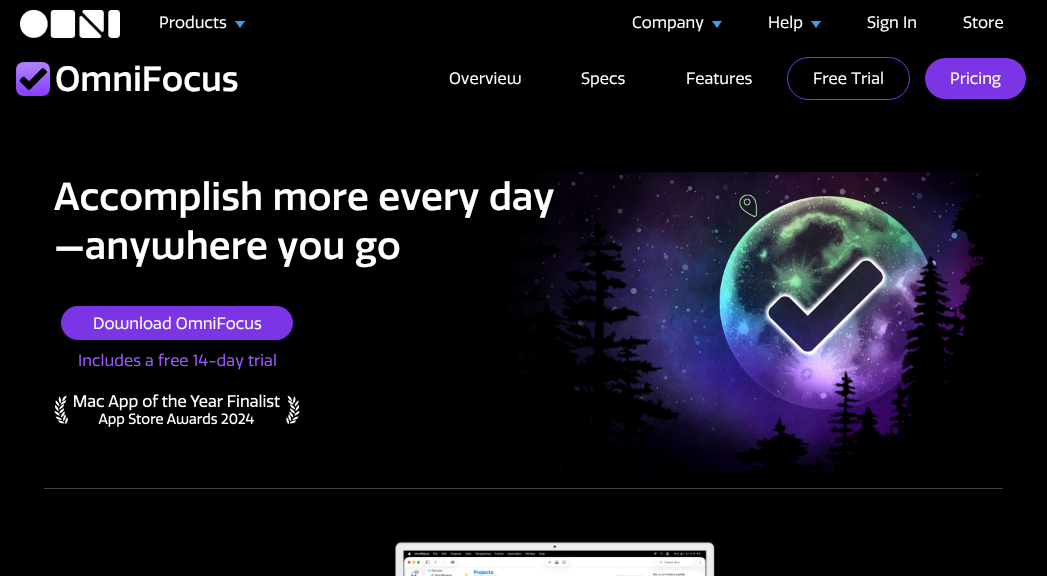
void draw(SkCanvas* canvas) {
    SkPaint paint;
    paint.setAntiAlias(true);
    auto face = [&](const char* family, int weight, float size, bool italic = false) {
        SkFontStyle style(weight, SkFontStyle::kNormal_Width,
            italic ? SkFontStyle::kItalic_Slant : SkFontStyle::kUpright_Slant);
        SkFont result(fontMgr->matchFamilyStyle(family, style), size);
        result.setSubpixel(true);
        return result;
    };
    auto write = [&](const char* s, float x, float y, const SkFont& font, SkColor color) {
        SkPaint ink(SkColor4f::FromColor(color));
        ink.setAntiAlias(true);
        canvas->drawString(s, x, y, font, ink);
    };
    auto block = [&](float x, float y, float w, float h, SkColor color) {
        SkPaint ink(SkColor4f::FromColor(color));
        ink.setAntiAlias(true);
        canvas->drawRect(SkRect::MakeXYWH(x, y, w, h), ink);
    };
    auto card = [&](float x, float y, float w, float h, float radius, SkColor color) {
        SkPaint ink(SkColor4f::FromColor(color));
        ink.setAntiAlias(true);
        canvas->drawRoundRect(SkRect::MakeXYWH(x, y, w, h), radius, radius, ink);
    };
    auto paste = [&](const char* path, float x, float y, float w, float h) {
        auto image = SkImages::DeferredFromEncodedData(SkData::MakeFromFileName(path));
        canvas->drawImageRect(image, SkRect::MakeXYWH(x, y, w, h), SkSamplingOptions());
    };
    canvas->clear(SK_ColorBLACK);
    paste("pic1.png", 20, 10, 100, 28);
    auto kFont1 = face("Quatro", 400, 16);
    write("Products", 159, 28, kFont1, SK_ColorWHITE);
    paint.setColor(SkColorSetRGB(58, 159, 242));
    canvas->drawPath(SkPathBuilder().moveTo(235, 21).lineTo(245, 21).lineTo(240, 28).close().detach(), paint);
    write("Company", 632, 28, kFont1, SK_ColorWHITE);
    canvas->drawPath(SkPathBuilder().moveTo(712, 21).lineTo(722, 21).lineTo(717, 28).close().detach(), paint);
    write("Help", 768, 28, kFont1, SK_ColorWHITE);
    canvas->drawPath(SkPathBuilder().moveTo(811, 21).lineTo(821, 21).lineTo(816, 28).close().detach(), paint);
    write("Sign In", 867, 28, kFont1, SK_ColorWHITE);
    write("Store", 963, 28, kFont1, SK_ColorWHITE);
    paste("pic2.png", 16, 62, 34, 34);
    auto kFont2 = face("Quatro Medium", 500, 34);
    write("OmniFocus", 55, 91, kFont2, SK_ColorWHITE);
    write("Overview", 449, 84, kFont1, SK_ColorWHITE);
    write("Specs", 581, 84, kFont1, SK_ColorWHITE);
    write("Features", 686, 84, kFont1, SK_ColorWHITE);
    paint.setStyle(SkPaint::kStroke_Style);
    paint.setStrokeWidth(1);
    paint.setColor(SkColorSetRGB(123, 53, 229));
    canvas->drawRoundRect(SkRect::MakeXYWH(787.5f, 57.5f, 122, 42), 21, 21, paint);
    write("Free Trial", 813, 84, kFont1, SK_ColorWHITE);
    card(925, 58, 101, 41, 20.5f, SkColorSetRGB(123, 53, 229));
    write("Pricing", 950, 84, kFont1, SK_ColorWHITE);
    paste("pic3.png", 505, 172, 488, 300);
    auto kFont3 = face("Quatro Medium", 500, 37.75f);
    write("Accomplish more every day", 54, 210, kFont3, SK_ColorWHITE);
    write("—anywhere you go", 54, 259, kFont3, SK_ColorWHITE);
    card(61, 306, 232, 34, 17, SkColorSetRGB(123, 53, 229));
    write("Download OmniFocus", 93, 329, kFont1, SK_ColorWHITE);
    write("Includes a free 14-day trial", 78, 366, kFont1, SkColorSetRGB(155, 89, 255));
    paste("pic4.png", 54, 394, 246, 33);
    block(44, 488, 959, 1, SkColorSetRGB(64, 64, 64));
    paste("pic5.png", 395, 541, 320, 35);
}
